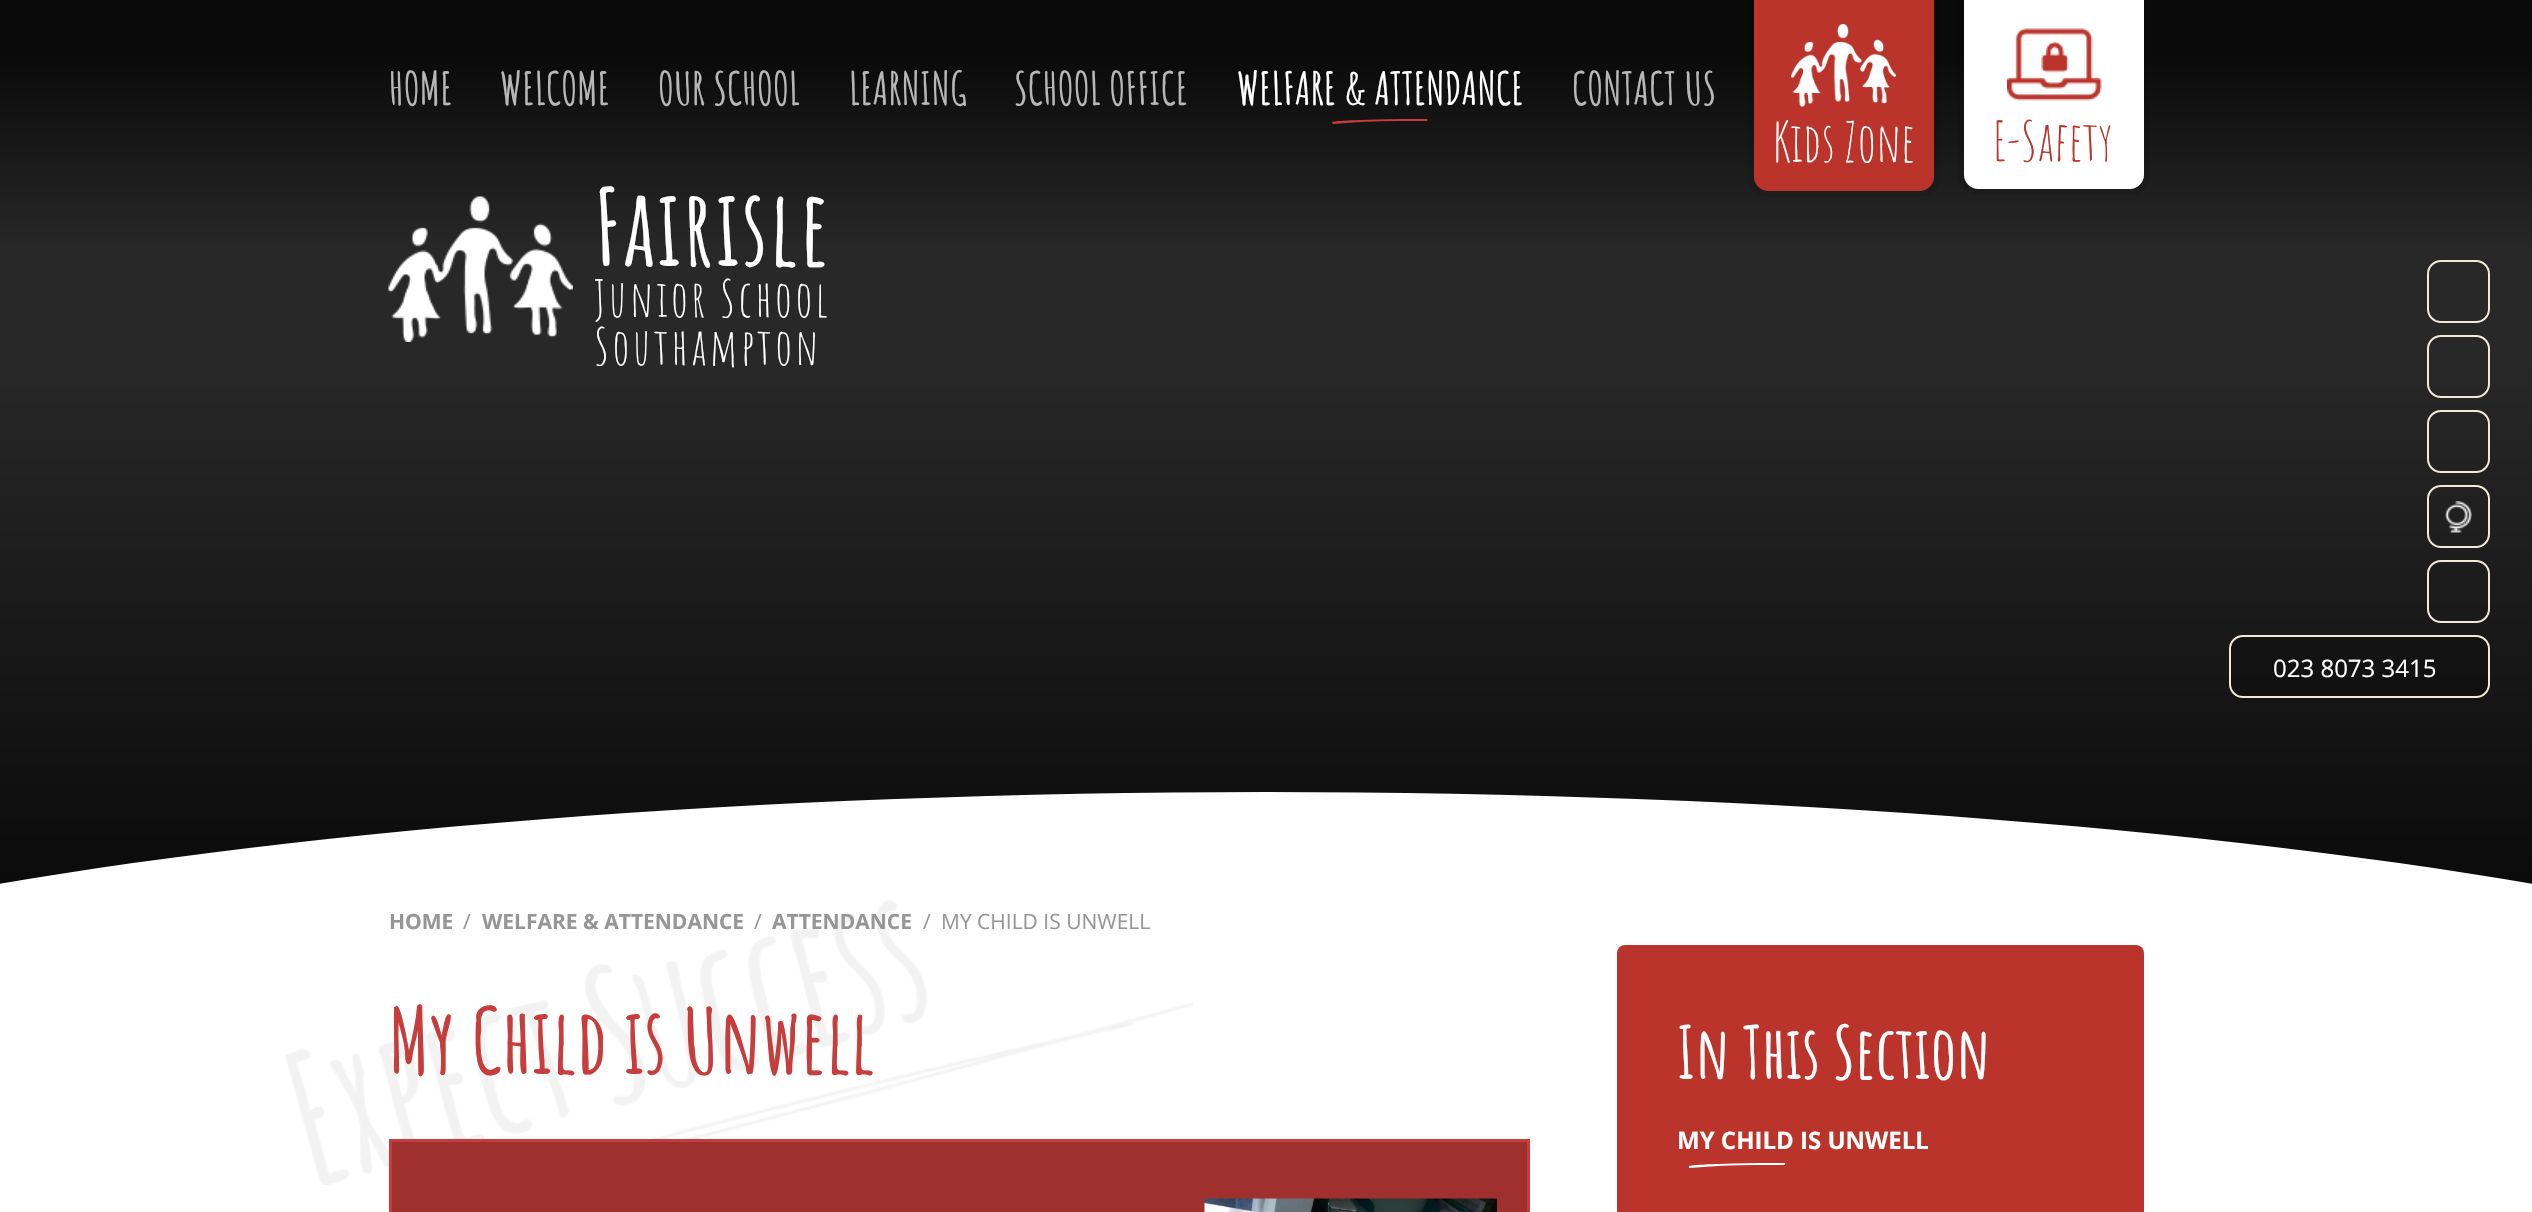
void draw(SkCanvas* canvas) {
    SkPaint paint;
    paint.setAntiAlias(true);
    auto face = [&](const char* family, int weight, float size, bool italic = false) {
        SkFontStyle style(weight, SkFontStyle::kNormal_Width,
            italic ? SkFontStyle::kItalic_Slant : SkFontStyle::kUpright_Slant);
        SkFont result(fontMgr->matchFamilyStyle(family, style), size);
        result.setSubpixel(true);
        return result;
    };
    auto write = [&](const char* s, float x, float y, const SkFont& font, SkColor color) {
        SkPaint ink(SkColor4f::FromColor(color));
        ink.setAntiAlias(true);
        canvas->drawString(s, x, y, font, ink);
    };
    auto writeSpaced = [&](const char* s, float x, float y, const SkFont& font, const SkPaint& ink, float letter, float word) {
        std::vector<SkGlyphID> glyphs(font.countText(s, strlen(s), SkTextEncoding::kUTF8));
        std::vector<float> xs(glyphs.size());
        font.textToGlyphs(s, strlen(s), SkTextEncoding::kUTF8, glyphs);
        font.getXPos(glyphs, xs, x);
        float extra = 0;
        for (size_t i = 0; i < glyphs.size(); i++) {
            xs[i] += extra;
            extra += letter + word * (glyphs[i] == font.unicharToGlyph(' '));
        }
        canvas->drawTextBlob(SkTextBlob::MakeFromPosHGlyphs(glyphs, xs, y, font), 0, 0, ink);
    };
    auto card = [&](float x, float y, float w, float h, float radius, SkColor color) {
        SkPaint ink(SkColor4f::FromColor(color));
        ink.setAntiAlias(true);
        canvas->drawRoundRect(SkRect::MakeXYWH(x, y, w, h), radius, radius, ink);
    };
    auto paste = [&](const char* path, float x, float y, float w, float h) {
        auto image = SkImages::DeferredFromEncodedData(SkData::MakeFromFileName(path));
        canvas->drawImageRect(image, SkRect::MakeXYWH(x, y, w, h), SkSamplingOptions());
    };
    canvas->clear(SK_ColorWHITE);
    {
        const SkColor colors[] = {SkColorSetRGB(10, 10, 10), SkColorSetRGB(40, 40, 40), SkColorSetRGB(40, 40, 40), SkColorSetRGB(10, 10, 10)};
        const float stops[] = {0, 0.6f, 0.72f, 0.94f};
        const SkPoint ends[] = {{1266, 900}, {1266, 0}};
        paint.setShader(SkGradientShader::MakeLinear(ends, colors, stops, 4, SkTileMode::kClamp));
        paint.setAlpha(255);
    }
    canvas->drawRect(SkRect::MakeXYWH(0, 0, 2532, 884), paint);
    auto kFont1 = face("Amatic SC", 700, 45);
    write("HOME", 389, 105, kFont1, SkColorSetRGB(183, 183, 183));
    write("WELCOME", 500, 105, kFont1, SkColorSetRGB(183, 183, 183));
    write("OUR SCHOOL", 658, 105, kFont1, SkColorSetRGB(183, 183, 183));
    write("LEARNING", 849, 105, kFont1, SkColorSetRGB(183, 183, 183));
    write("SCHOOL OFFICE", 1014, 105, kFont1, SkColorSetRGB(183, 183, 183));
    write("WELFARE & ATTENDANCE", 1237, 105, kFont1, SK_ColorWHITE);
    paint.setShader(nullptr);
    paint.setColor(SkColorSetRGB(198, 61, 59));
    canvas->drawPath(SkPathBuilder().moveTo(1333, 124).cubicTo(1355, 122, 1376, 121, 1397, 121).lineTo(1427, 121).cubicTo(1427, 121, 1428, 119, 1427, 119).lineTo(1415, 119).cubicTo(1397, 119, 1380, 119, 1362, 120).cubicTo(1358, 120, 1333, 121, 1332, 122).cubicTo(1332, 123, 1333, 124, 1333, 124).close().detach(), paint);
    write("CONTACT US", 1572, 105, kFont1, SkColorSetRGB(183, 183, 183));
    paint.setStyle(SkPaint::kStroke_Style);
    paint.setStrokeWidth(2);
    paint.setColor(SkColorSetRGB(242, 233, 214));
    canvas->drawRoundRect(SkRect::MakeXYWH(2428, 261, 61, 61), 13, 13, paint);
    canvas->drawRoundRect(SkRect::MakeXYWH(2428, 336, 61, 61), 13, 13, paint);
    canvas->drawRoundRect(SkRect::MakeXYWH(2428, 411, 61, 61), 13, 13, paint);
    canvas->drawRoundRect(SkRect::MakeXYWH(2428, 486, 61, 61), 13, 13, paint);
    paste("pic1.png", 2445, 501, 27, 32);
    canvas->drawRoundRect(SkRect::MakeXYWH(2428, 561, 61, 61), 13, 13, paint);
    paint.setStyle(SkPaint::kFill_Style);
    paint.setColor(SkColorSetARGB(59, 0, 0, 0));
    canvas->drawRoundRect(SkRect::MakeXYWH(2230, 636, 259, 61), 13, 13, paint);
    paint.setStyle(SkPaint::kStroke_Style);
    paint.setColor(SkColorSetRGB(242, 233, 214));
    canvas->drawRoundRect(SkRect::MakeXYWH(2230, 636, 259, 61), 13, 13, paint);
    auto kFont2 = face("Open Sans", 400, 24);
    write("023 8073 3415", 2273, 677, kFont2, SK_ColorWHITE);
    paint.setStrokeWidth(6);
    paint.setColor(SkColorSetARGB(26, 0, 0, 0));
    canvas->drawPath(SkPathBuilder().moveTo(1751, -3).lineTo(1937, -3).lineTo(1937, 177).cubicTo(1937, 186.5f, 1929.5f, 194, 1920, 194).lineTo(1768, 194).cubicTo(1758.5f, 194, 1751, 186.5f, 1751, 177).close().detach(), paint);
    paint.setStyle(SkPaint::kFill_Style);
    paint.setColor(SkColorSetRGB(186, 52, 44));
    canvas->drawPath(SkPathBuilder().moveTo(1754, 0).lineTo(1934, 0).lineTo(1934, 177).cubicTo(1934, 184.5f, 1927.5f, 191, 1920, 191).lineTo(1768, 191).cubicTo(1760.5f, 191, 1754, 184.5f, 1754, 177).close().detach(), paint);
    paste("pic2.png", 1791, 24, 105, 83);
    auto kFont3 = face("Amatic SC", 400, 54);
    write("Kids Zone", 1773, 162, kFont3, SK_ColorWHITE);
    paint.setStyle(SkPaint::kStroke_Style);
    paint.setColor(SkColorSetARGB(26, 0, 0, 0));
    canvas->drawPath(SkPathBuilder().moveTo(1961, -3).lineTo(2147, -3).lineTo(2147, 175).cubicTo(2147, 184.5f, 2139.5f, 192, 2130, 192).lineTo(1978, 192).cubicTo(1968.5f, 192, 1961, 184.5f, 1961, 175).close().detach(), paint);
    paint.setStyle(SkPaint::kFill_Style);
    paint.setColor(SK_ColorWHITE);
    canvas->drawPath(SkPathBuilder().moveTo(1964, 0).lineTo(2144, 0).lineTo(2144, 175).cubicTo(2144, 182.5f, 2137.5f, 189, 2130, 189).lineTo(1978, 189).cubicTo(1970.5f, 189, 1964, 182.5f, 1964, 175).close().detach(), paint);
    paste("pic3.png", 2007, 28, 95, 73);
    write("E-Safety", 1993, 161, kFont3, SkColorSetRGB(186, 52, 44));
    paste("pic4.png", 388, 196, 185, 146);
    auto kFont4 = face("Amatic SC", 700, 105);
    writeSpaced("Fairisle", 594, 266, kFont4, paint, 2, 0);
    auto kFont5 = face("Amatic SC", 400, 50);
    writeSpaced("Junior School", 594, 317, kFont5, paint, 3, 0);
    writeSpaced("Southampton", 594, 365, kFont5, paint, 3, 0);
    canvas->drawOval(SkRect::MakeXYWH(-633, 792, 3798, 720), paint);
    paste("pic5.png", 285, 900, 909, 285);
    auto kFont6 = face("Open Sans", 700, 21);
    write("HOME", 389, 929, kFont6, SkColorSetRGB(151, 150, 150));
    auto kFont7 = face("Open Sans", 400, 21);
    write("/", 463, 929, kFont7, SkColorSetRGB(151, 150, 150));
    write("WELFARE & ATTENDANCE", 482, 929, kFont6, SkColorSetRGB(151, 150, 150));
    write("/", 754, 929, kFont7, SkColorSetRGB(151, 150, 150));
    write("ATTENDANCE", 772, 929, kFont6, SkColorSetRGB(151, 150, 150));
    write("/", 923, 929, kFont7, SkColorSetRGB(151, 150, 150));
    write("MY CHILD IS UNWELL", 941, 929, kFont7, SkColorSetRGB(151, 150, 150));
    auto kFont8 = face("Amatic SC", 700, 90);
    write("My Child is Unwell", 389, 1074, kFont8, SkColorSetRGB(198, 61, 59));
    paint.setColor(SkColorSetRGB(160, 48, 46));
    canvas->drawRect(SkRect::MakeXYWH(390.5f, 1140.5f, 1138, 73), paint);
    paint.setStyle(SkPaint::kStroke_Style);
    paint.setStrokeWidth(3);
    paint.setColor(SkColorSetRGB(198, 61, 59));
    canvas->drawRect(SkRect::MakeXYWH(390.5f, 1140.5f, 1138, 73), paint);
    paste("pic6.png", 1204, 1198, 293, 14);
    card(1617, 945, 527, 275, 8, SkColorSetRGB(186, 52, 44));
    auto kFont9 = face("Amatic SC", 700, 72);
    write("In This Section", 1677, 1079, kFont9, SK_ColorWHITE);
    auto kFont10 = face("Open Sans", 700, 24);
    write("MY CHILD IS UNWELL", 1677, 1149, kFont10, SK_ColorWHITE);
    paint.setStyle(SkPaint::kFill_Style);
    paint.setColor(SK_ColorWHITE);
    canvas->drawPath(SkPathBuilder().moveTo(1690, 1168).cubicTo(1712, 1166, 1733, 1165, 1754, 1165).lineTo(1784, 1165).cubicTo(1785, 1165, 1785, 1163, 1785, 1163).lineTo(1772, 1163).cubicTo(1754, 1163, 1737, 1163, 1719, 1164).cubicTo(1715, 1164, 1690, 1165, 1689, 1166).cubicTo(1689, 1167, 1689, 1168, 1690, 1168).close().detach(), paint);
}
